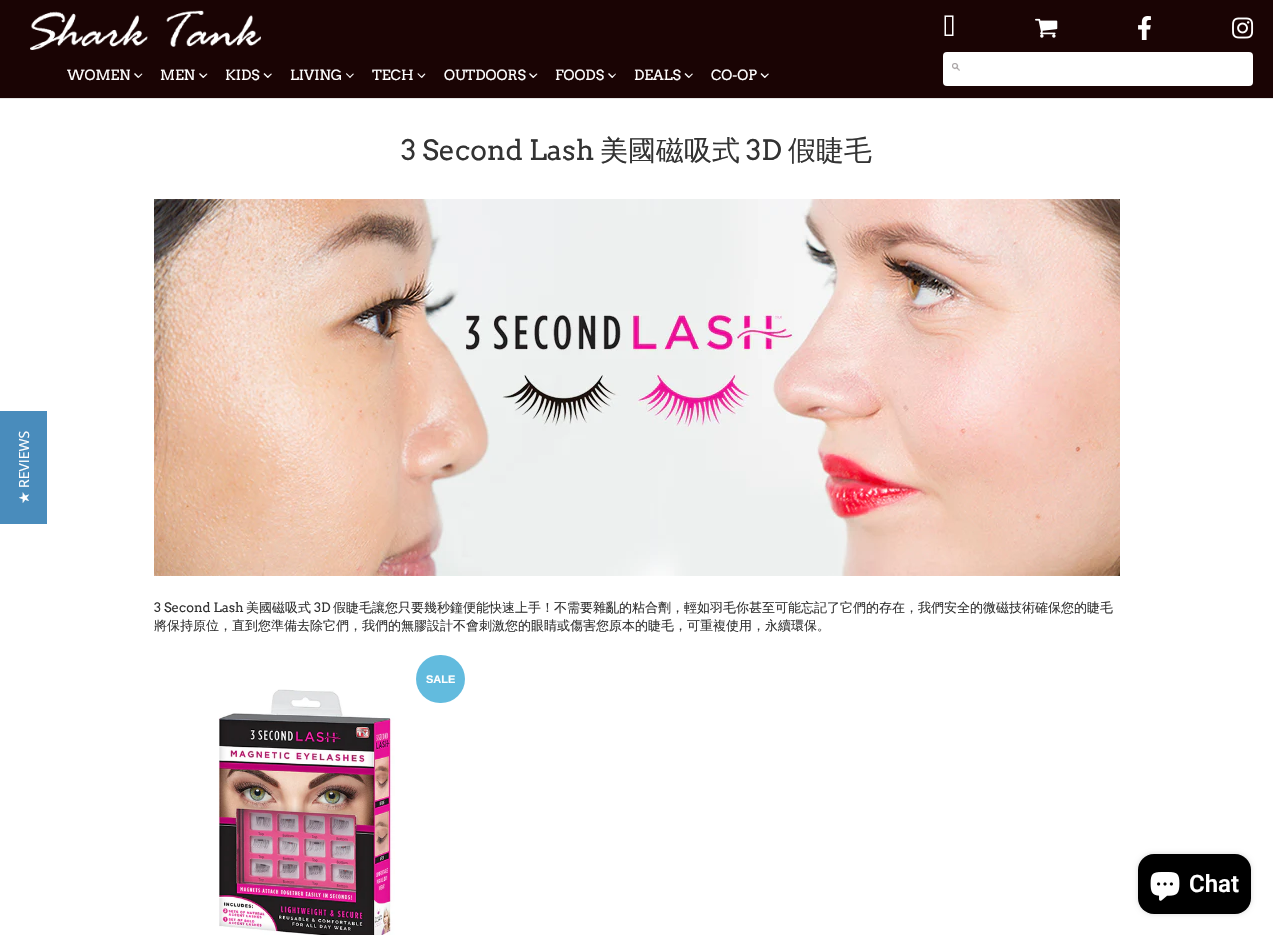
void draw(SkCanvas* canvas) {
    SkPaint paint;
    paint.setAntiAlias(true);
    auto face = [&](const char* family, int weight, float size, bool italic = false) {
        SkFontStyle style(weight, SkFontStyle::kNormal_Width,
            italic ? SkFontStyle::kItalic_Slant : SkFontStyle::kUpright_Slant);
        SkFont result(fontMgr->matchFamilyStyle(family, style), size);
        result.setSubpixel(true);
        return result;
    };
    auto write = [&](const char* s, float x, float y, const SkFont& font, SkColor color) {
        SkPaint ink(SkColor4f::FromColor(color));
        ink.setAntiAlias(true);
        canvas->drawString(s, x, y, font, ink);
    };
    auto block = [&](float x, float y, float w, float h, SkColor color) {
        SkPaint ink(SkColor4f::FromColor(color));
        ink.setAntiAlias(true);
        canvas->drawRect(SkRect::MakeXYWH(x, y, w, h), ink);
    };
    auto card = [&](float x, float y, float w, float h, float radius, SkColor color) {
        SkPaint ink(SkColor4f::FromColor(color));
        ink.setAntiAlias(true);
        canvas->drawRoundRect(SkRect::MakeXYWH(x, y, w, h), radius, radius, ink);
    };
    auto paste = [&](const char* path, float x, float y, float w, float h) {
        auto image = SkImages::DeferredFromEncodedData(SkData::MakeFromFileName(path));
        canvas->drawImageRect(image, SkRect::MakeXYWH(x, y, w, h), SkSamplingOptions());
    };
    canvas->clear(SK_ColorWHITE);
    block(0, 0, 1273, 98, SkColorSetRGB(26, 4, 4));
    block(0, 98, 1273, 1, SkColorSetRGB(229, 229, 229));
    paste("pic1.png", 30, 10, 231, 40);
    paste("pic2.png", 944, 15, 10, 21);
    paste("pic3.png", 1035, 18, 23, 20);
    paste("pic4.png", 1138, 16, 13, 24);
    paste("pic5.png", 1232, 17, 22, 22);
    card(943, 52, 310, 34, 4, SK_ColorWHITE);
    paste("pic6.png", 952, 63, 8, 8);
    auto kFont1 = face("Arvo", 400, 14);
    write("WOMEN", 67, 80, kFont1, SK_ColorWHITE);
    paint.setColor(SK_ColorWHITE);
    canvas->drawPath(SkPathBuilder().moveTo(141.5f, 73.5f).lineTo(142.5f, 74).lineTo(138.5f, 78).lineTo(138, 77).close().detach(), paint);
    canvas->drawPath(SkPathBuilder().moveTo(135, 73).lineTo(139, 77).lineTo(138, 78).lineTo(134, 74).close().detach(), paint);
    write("MEN", 160, 80, kFont1, SK_ColorWHITE);
    canvas->drawPath(SkPathBuilder().moveTo(206.5f, 73.5f).lineTo(207.5f, 74).lineTo(203.5f, 78).lineTo(202.5f, 77).close().detach(), paint);
    canvas->drawPath(SkPathBuilder().moveTo(200, 73).lineTo(204, 77).lineTo(203, 78).lineTo(199, 74).close().detach(), paint);
    write("KIDS", 225, 80, kFont1, SK_ColorWHITE);
    canvas->drawPath(SkPathBuilder().moveTo(271, 73.5f).lineTo(272, 74).lineTo(268, 78).lineTo(267, 77).close().detach(), paint);
    canvas->drawPath(SkPathBuilder().moveTo(264.5f, 73).lineTo(268.5f, 77).lineTo(267.5f, 78).lineTo(263.5f, 74).close().detach(), paint);
    write("LIVING", 290, 80, kFont1, SK_ColorWHITE);
    canvas->drawPath(SkPathBuilder().moveTo(353, 73.5f).lineTo(354, 74).lineTo(350, 78).lineTo(349.5f, 77).close().detach(), paint);
    canvas->drawPath(SkPathBuilder().moveTo(346.5f, 73).lineTo(350.5f, 77).lineTo(350, 78).lineTo(346, 74).close().detach(), paint);
    write("TECH", 372, 80, kFont1, SK_ColorWHITE);
    canvas->drawPath(SkPathBuilder().moveTo(424.5f, 73.5f).lineTo(425.5f, 74).lineTo(422, 78).lineTo(421, 77).close().detach(), paint);
    canvas->drawPath(SkPathBuilder().moveTo(418, 73).lineTo(422, 77).lineTo(421.5f, 78).lineTo(417.5f, 74).close().detach(), paint);
    write("OUTDOORS", 444, 80, kFont1, SK_ColorWHITE);
    canvas->drawPath(SkPathBuilder().moveTo(536.5f, 73.5f).lineTo(537.5f, 74).lineTo(533.5f, 78).lineTo(532.5f, 77).close().detach(), paint);
    canvas->drawPath(SkPathBuilder().moveTo(530, 73).lineTo(534, 77).lineTo(533, 78).lineTo(529, 74).close().detach(), paint);
    write("FOODS", 555, 80, kFont1, SK_ColorWHITE);
    canvas->drawPath(SkPathBuilder().moveTo(615.5f, 73.5f).lineTo(616, 74).lineTo(612.5f, 78).lineTo(611.5f, 77).close().detach(), paint);
    canvas->drawPath(SkPathBuilder().moveTo(609, 73).lineTo(613, 77).lineTo(612, 78).lineTo(608, 74).close().detach(), paint);
    write("DEALS", 634, 80, kFont1, SK_ColorWHITE);
    canvas->drawPath(SkPathBuilder().moveTo(692, 73.5f).lineTo(693, 74).lineTo(689, 78).lineTo(688.5f, 77).close().detach(), paint);
    canvas->drawPath(SkPathBuilder().moveTo(685.5f, 73).lineTo(689.5f, 77).lineTo(688.5f, 78).lineTo(684.5f, 74).close().detach(), paint);
    write("CO-OP", 711, 80, kFont1, SK_ColorWHITE);
    canvas->drawPath(SkPathBuilder().moveTo(768, 73.5f).lineTo(769, 74).lineTo(765, 78).lineTo(764, 77).close().detach(), paint);
    canvas->drawPath(SkPathBuilder().moveTo(761.5f, 73).lineTo(765.5f, 77).lineTo(764.5f, 78).lineTo(760.5f, 74).close().detach(), paint);
    block(0, 411, 47, 113, SkColorSetRGB(73, 140, 188));
    auto kFont2 = face("Open Sans", 400, 14);
    canvas->save();
    canvas->rotate(-90, 29, 488);
    write("REVIEWS", 29, 488, kFont2, SK_ColorWHITE);
    canvas->restore();
    auto kFont3 = face("DejaVu Sans", 400, 14);
    canvas->save();
    canvas->rotate(-90, 29, 504);
    write("★", 29, 504, kFont3, SK_ColorWHITE);
    canvas->restore();
    auto kFont4 = face("Arvo", 400, 28);
    write("3 Second Lash", 401, 160, kFont4, SkColorSetRGB(51, 51, 51));
    auto kFont5 = face("WenQuanYi Zen Hei", 500, 28);
    write("美國磁吸式", 600, 160, kFont5, SkColorSetRGB(51, 51, 51));
    write("3D", 746, 160, kFont4, SkColorSetRGB(51, 51, 51));
    write("假睫毛", 788, 160, kFont5, SkColorSetRGB(51, 51, 51));
    paste("pic7.png", 154, 199, 966, 377);
    auto kFont6 = face("Arvo", 400, 13);
    write("3 Second Lash", 154, 612, kFont6, SkColorSetRGB(51, 51, 51));
    auto kFont7 = face("WenQuanYi Zen Hei", 500, 13);
    write("美國磁吸式", 246, 612, kFont7, SkColorSetRGB(51, 51, 51));
    write("3D", 314, 612, kFont6, SkColorSetRGB(51, 51, 51));
    write("假睫毛讓您只要幾秒鐘便能快速上手！不需要雜亂的粘合劑，輕如羽毛你甚至可能忘記了它們的存在，我們安全的微磁技術確保您的睫毛", 333, 612, kFont7, SkColorSetRGB(51, 51, 51));
    write("將保持原位，直到您準備去除它們，我們的無膠設計不會刺激您的眼睛或傷害您原本的睫毛，可重複使用，永續環保。", 154, 630, kFont7, SkColorSetRGB(51, 51, 51));
    card(416, 655, 49, 48, 24, SkColorSetRGB(98, 187, 222));
    auto kFont8 = face("Liberation Sans", 700, 11);
    write("SALE", 426, 683, kFont8, SK_ColorWHITE);
    paste("pic8.png", 218, 689, 177, 246);
    paint.setColor(SkColorSetARGB(38, 0, 0, 0));
    paint.setMaskFilter(SkMaskFilter::MakeBlur(kNormal_SkBlurStyle, 2.5f));
    canvas->drawRoundRect(SkRect::MakeXYWH(1138, 854, 113, 60), 16, 16, paint);
    paint.setMaskFilter(nullptr);
    card(1138, 854, 113, 60, 16, SK_ColorBLACK);
    paste("pic9.png", 1150, 872, 30, 29);
    auto kFont9 = face("Roboto", 600, 24);
    write("Chat", 1189, 892, kFont9, SK_ColorWHITE);
}
